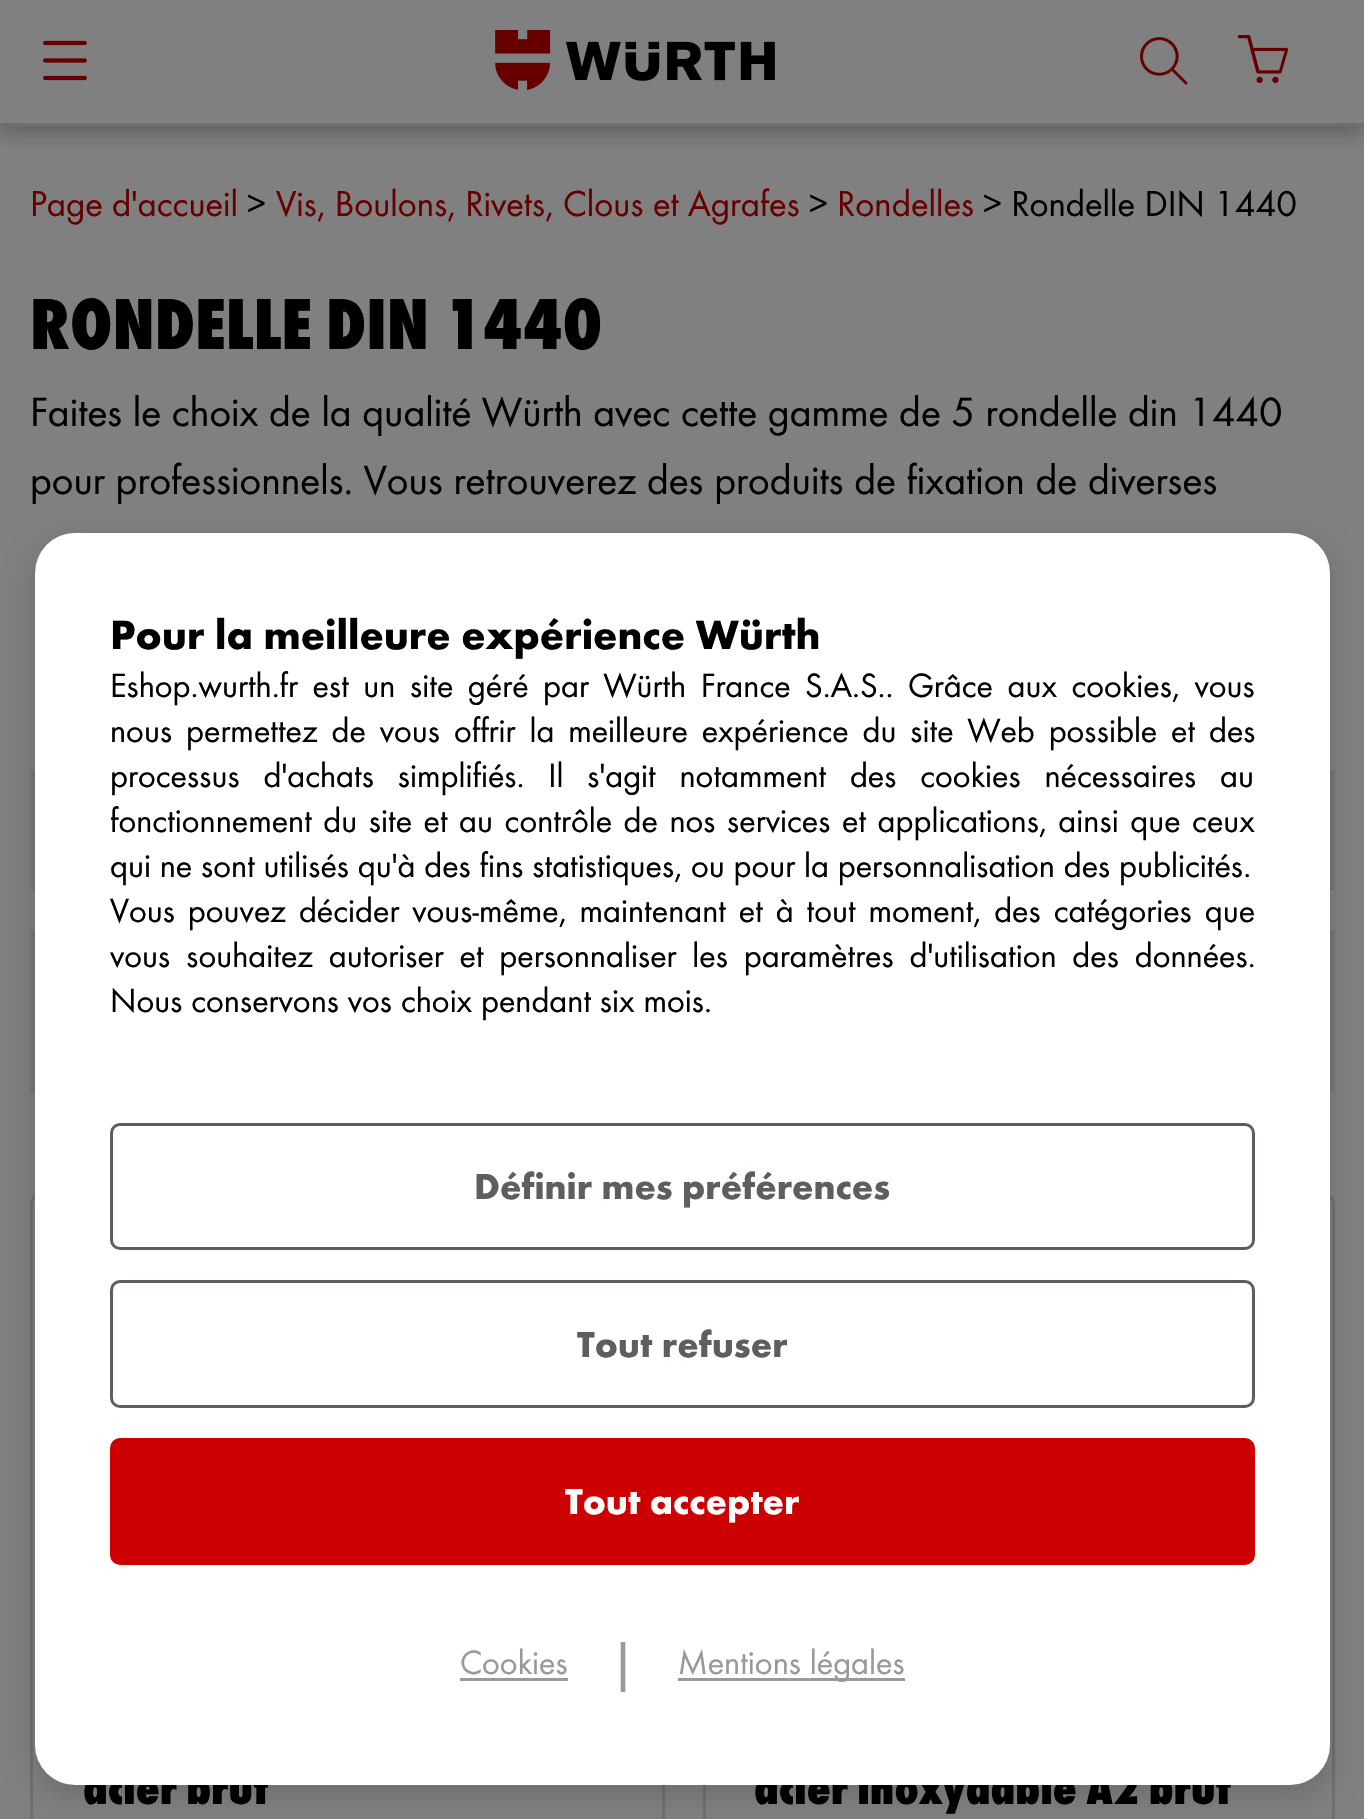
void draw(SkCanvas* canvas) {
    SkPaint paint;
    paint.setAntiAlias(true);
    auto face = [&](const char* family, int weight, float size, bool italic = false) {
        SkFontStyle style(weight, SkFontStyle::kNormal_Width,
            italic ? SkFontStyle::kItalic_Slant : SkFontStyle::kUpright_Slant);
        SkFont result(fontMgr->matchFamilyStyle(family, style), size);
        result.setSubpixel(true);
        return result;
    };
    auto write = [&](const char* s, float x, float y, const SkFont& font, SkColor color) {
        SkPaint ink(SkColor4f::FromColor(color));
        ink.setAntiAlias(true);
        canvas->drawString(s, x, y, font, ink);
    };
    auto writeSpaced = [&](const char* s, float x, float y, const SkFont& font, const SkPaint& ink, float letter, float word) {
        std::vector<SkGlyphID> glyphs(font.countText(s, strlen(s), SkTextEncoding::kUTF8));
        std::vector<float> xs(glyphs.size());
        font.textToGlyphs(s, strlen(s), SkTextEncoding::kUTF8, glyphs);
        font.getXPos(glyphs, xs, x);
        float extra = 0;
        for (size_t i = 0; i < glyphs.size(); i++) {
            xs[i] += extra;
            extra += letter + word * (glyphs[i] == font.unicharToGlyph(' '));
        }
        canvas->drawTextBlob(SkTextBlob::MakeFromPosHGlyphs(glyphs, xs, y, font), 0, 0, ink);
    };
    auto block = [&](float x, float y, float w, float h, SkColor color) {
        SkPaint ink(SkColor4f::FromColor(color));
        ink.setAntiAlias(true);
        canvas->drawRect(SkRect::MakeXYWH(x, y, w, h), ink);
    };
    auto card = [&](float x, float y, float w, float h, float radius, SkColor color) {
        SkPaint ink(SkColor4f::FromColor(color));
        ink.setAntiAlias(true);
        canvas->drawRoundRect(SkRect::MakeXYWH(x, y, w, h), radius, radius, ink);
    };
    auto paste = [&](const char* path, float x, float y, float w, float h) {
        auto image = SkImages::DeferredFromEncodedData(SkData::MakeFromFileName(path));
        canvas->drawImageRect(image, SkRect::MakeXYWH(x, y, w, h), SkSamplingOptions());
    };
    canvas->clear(SkColorSetRGB(128, 128, 128));
    canvas->save();
    canvas->clipRect(SkRect::MakeXYWH(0, 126, 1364, 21));
    paint.setColor(SkColorSetARGB(66, 0, 0, 0));
    paint.setMaskFilter(SkMaskFilter::MakeBlur(kNormal_SkBlurStyle, 10));
    canvas->drawRect(SkRect::MakeXYWH(0, 8, 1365, 125), paint);
    paint.setMaskFilter(nullptr);
    canvas->restore();
    block(0, 123, 1364, 3, SkColorSetRGB(111, 111, 111));
    paste("pic1.png", 43, 40, 44, 41);
    paste("pic2.png", 495, 30, 280, 60);
    paste("pic3.png", 1140, 37, 48, 48);
    paste("pic4.png", 1238, 35, 51, 49);
    auto kFont1 = face("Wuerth", 400, 37.5f);
    write("Page d'accueil", 30, 216, kFont1, SkColorSetRGB(102, 0, 0));
    write(">", 247, 216, kFont1, SK_ColorBLACK);
    write("Vis, Boulons, Rivets, Clous et Agrafes", 276, 216, kFont1, SkColorSetRGB(102, 0, 0));
    write(">", 809, 216, kFont1, SK_ColorBLACK);
    write("Rondelles", 837, 216, kFont1, SkColorSetRGB(102, 0, 0));
    write("> Rondelle DIN 1440", 983, 216, kFont1, SK_ColorBLACK);
    auto kFont2 = face("Wuerth", 800, 75);
    write("RONDELLE DIN 1440", 30, 349, kFont2, SK_ColorBLACK);
    auto kFont3 = face("Wuerth", 400, 42.5f);
    write("Faites le choix de la qualité Würth avec cette gamme de 5 rondelle din 1440", 30, 426, kFont3, SK_ColorBLACK);
    write("pour professionnels. Vous retrouverez des produits de fixation de diverses", 30, 494, kFont3, SK_ColorBLACK);
    block(30, 770, 1305, 120, SkColorSetRGB(118, 118, 118));
    block(30, 930, 1305, 163, SkColorSetRGB(118, 118, 118));
    paint.setStyle(SkPaint::kStroke_Style);
    paint.setStrokeWidth(3);
    paint.setColor(SkColorSetRGB(111, 111, 111));
    canvas->drawRoundRect(SkRect::MakeXYWH(31.5f, 1194.5f, 632, 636), 8.5f, 8.5f, paint);
    auto kFont4 = face("Wuerth", 800, 50);
    write("acier brut", 83, 1804, kFont4, SK_ColorBLACK);
    canvas->drawRoundRect(SkRect::MakeXYWH(704.5f, 1194.5f, 629, 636), 8.5f, 8.5f, paint);
    write("acier inoxydable A2 brut", 754, 1804, kFont4, SK_ColorBLACK);
    paint.setStyle(SkPaint::kFill_Style);
    paint.setColor(SkColorSetARGB(38, 0, 0, 0));
    paint.setMaskFilter(SkMaskFilter::MakeBlur(kNormal_SkBlurStyle, 15));
    canvas->drawRoundRect(SkRect::MakeXYWH(35, 543, 1295, 1252), 40, 40, paint);
    paint.setMaskFilter(nullptr);
    card(35, 533, 1295, 1252, 40, SK_ColorWHITE);
    auto kFont5 = face("Wuerth", 700, 42.5f);
    write("Pour la meilleure expérience Würth", 110, 649, kFont5, SK_ColorBLACK);
    auto kFont6 = face("Wuerth", 400, 35);
    paint.setColor(SK_ColorBLACK);
    writeSpaced("Eshop.wurth.fr est un site géré par Würth France S.A.S.. Grâce aux cookies, vous", 110, 697, kFont6, paint, 0, 5.75f);
    writeSpaced("nous permettez de vous offrir la meilleure expérience du site Web possible et des", 110, 742, kFont6, paint, 0, 5.1f);
    writeSpaced("processus d'achats simplifiés. Il s'agit notamment des cookies nécessaires au", 110, 787, kFont6, paint, 0, 15);
    writeSpaced("fonctionnement du site et au contrôle de nos services et applications, ainsi que ceux", 110, 832, kFont6, paint, 0, 2.75f);
    write("qui ne sont utilisés qu'à des fins statistiques, ou pour la personnalisation des publicités.", 110, 877, kFont6, SK_ColorBLACK);
    writeSpaced("Vous pouvez décider vous-même, maintenant et à tout moment, des catégories que", 110, 922, kFont6, paint, 0, 4.1f);
    writeSpaced("vous souhaitez autoriser et personnaliser les paramètres d'utilisation des données.", 110, 967, kFont6, paint, 0, 7);
    write("Nous conservons vos choix pendant six mois.", 110, 1012, kFont6, SK_ColorBLACK);
    paint.setStyle(SkPaint::kStroke_Style);
    paint.setColor(SkColorSetRGB(96, 93, 92));
    canvas->drawRoundRect(SkRect::MakeXYWH(111.5f, 1124.5f, 1142, 124), 8.5f, 8.5f, paint);
    auto kFont7 = face("Wuerth", 700, 37.5f);
    write("Définir mes préférences", 474, 1199, kFont7, SkColorSetRGB(96, 93, 92));
    canvas->drawRoundRect(SkRect::MakeXYWH(111.5f, 1281.5f, 1142, 125), 8.5f, 8.5f, paint);
    write("Tout refuser", 577, 1357, kFont7, SkColorSetRGB(96, 93, 92));
    paint.setStyle(SkPaint::kFill_Style);
    paint.setColor(SkColorSetRGB(204, 0, 0));
    canvas->drawRoundRect(SkRect::MakeXYWH(111.5f, 1439.5f, 1142, 124), 8.5f, 8.5f, paint);
    paint.setStyle(SkPaint::kStroke_Style);
    canvas->drawRoundRect(SkRect::MakeXYWH(111.5f, 1439.5f, 1142, 124), 8.5f, 8.5f, paint);
    write("Tout accepter", 565, 1514, kFont7, SK_ColorWHITE);
    write("Cookies", 460, 1674, kFont6, SkColorSetRGB(153, 153, 153));
    block(460, 1678, 108, 3, SkColorSetRGB(153, 153, 153));
    auto kFont8 = face("Wuerth", 400, 60);
    write("|", 608, 1682, kFont8, SkColorSetRGB(153, 153, 153));
    block(678, 1678, 227, 3, SkColorSetRGB(153, 153, 153));
    write("Mentions légales", 678, 1674, kFont6, SkColorSetRGB(153, 153, 153));
}
